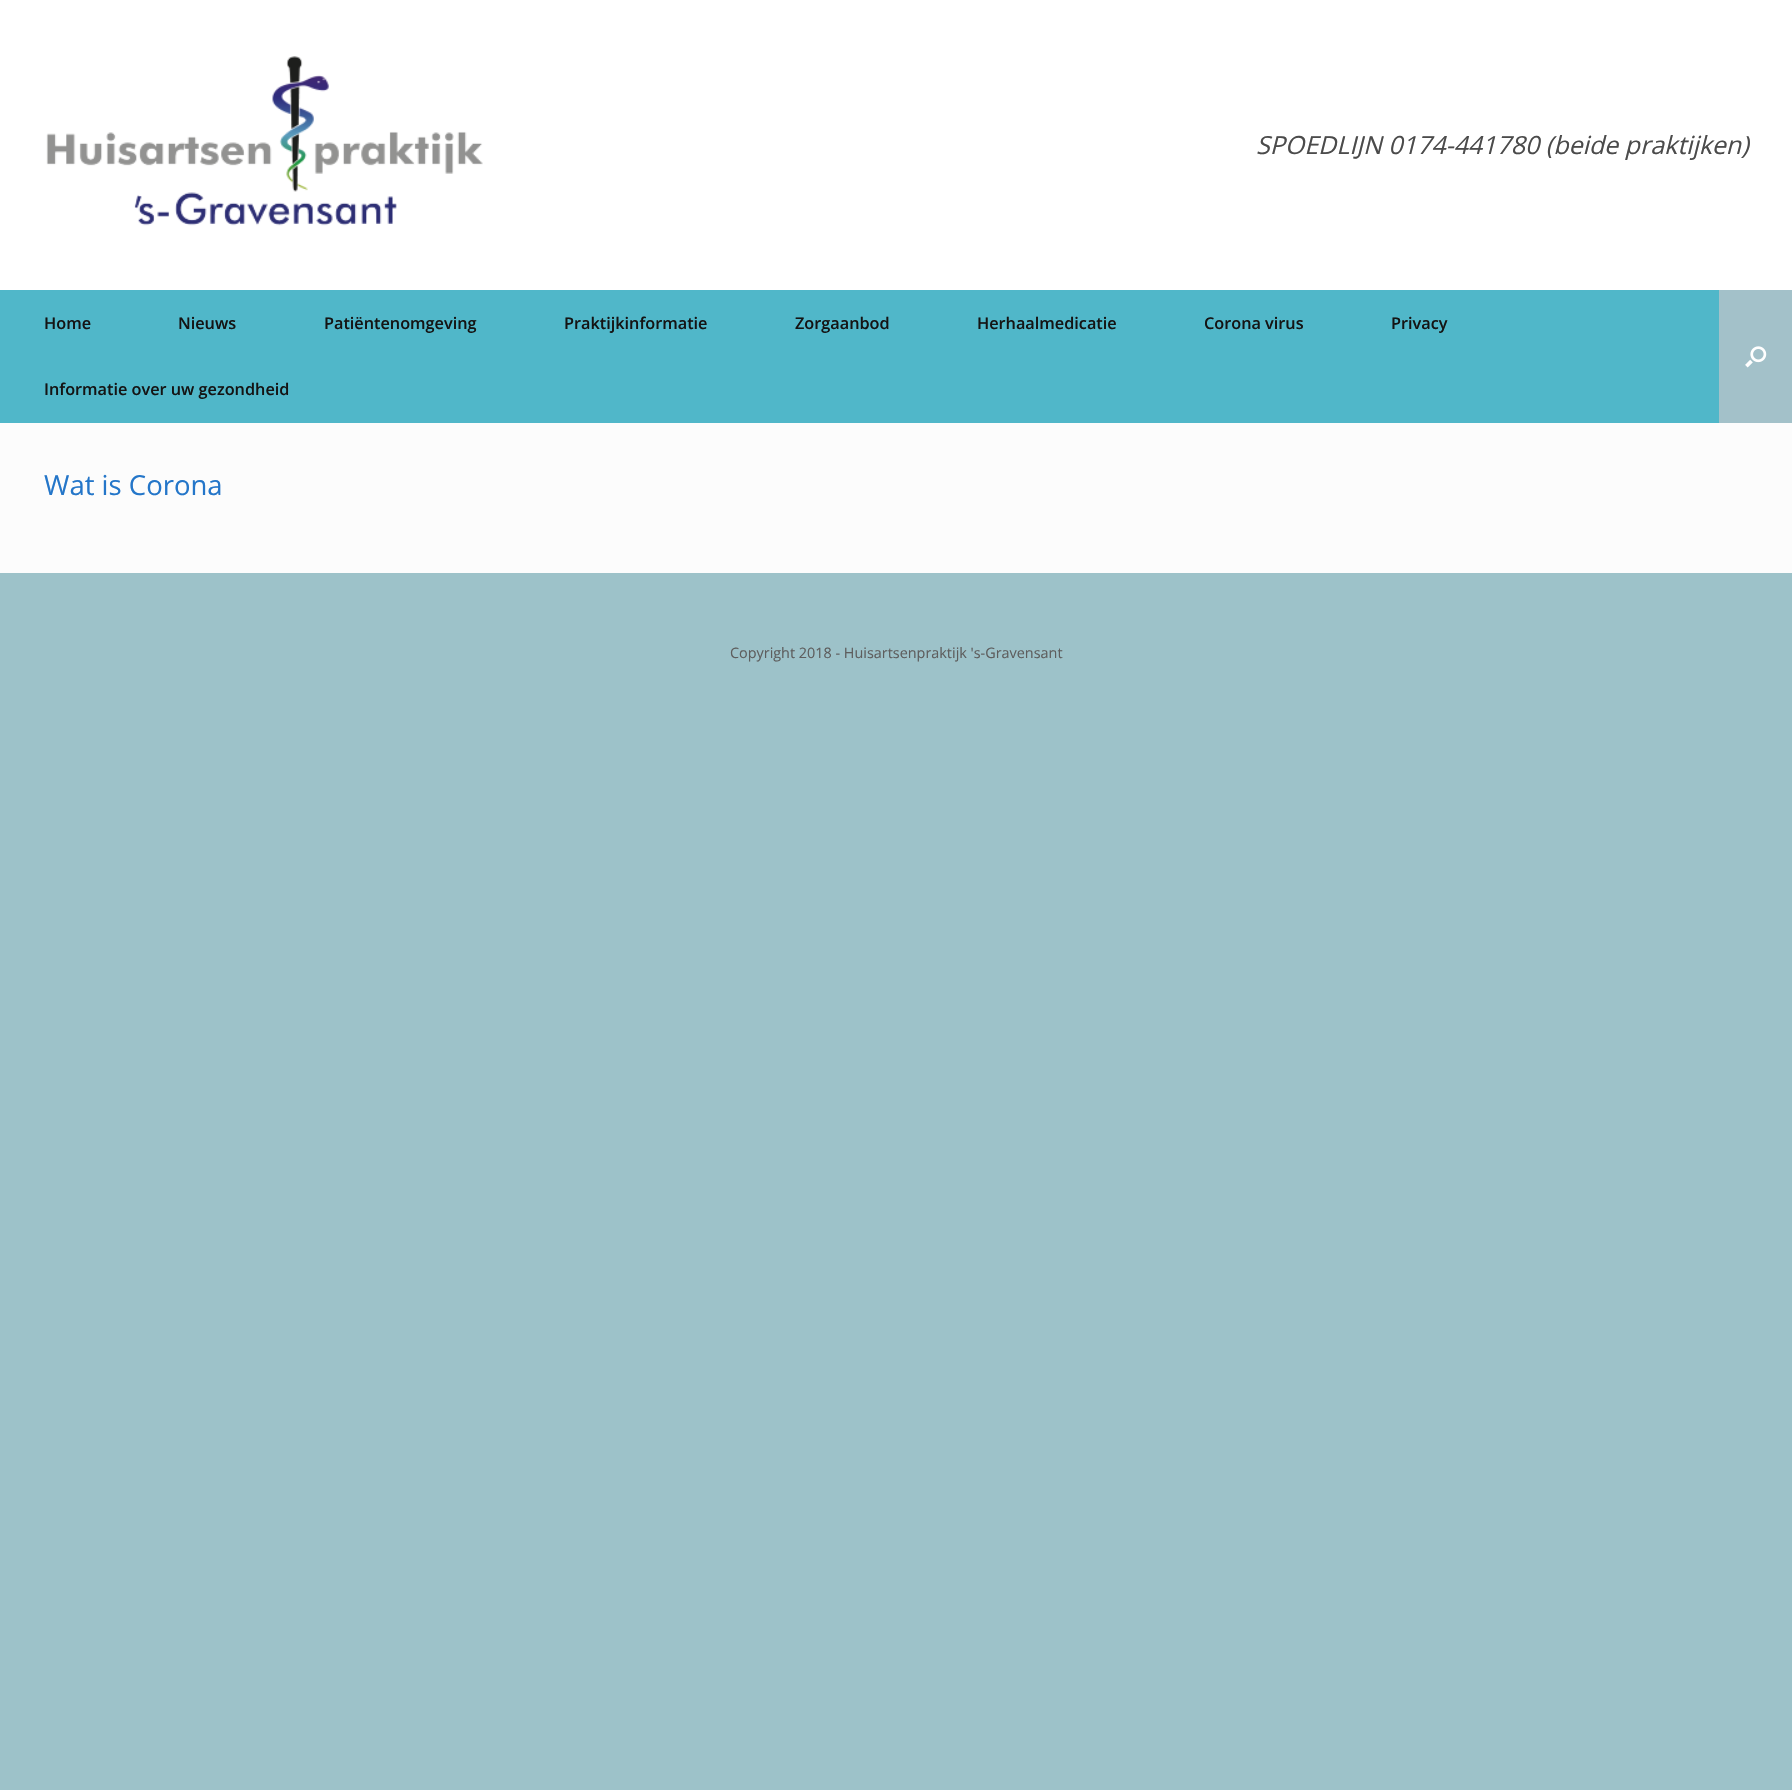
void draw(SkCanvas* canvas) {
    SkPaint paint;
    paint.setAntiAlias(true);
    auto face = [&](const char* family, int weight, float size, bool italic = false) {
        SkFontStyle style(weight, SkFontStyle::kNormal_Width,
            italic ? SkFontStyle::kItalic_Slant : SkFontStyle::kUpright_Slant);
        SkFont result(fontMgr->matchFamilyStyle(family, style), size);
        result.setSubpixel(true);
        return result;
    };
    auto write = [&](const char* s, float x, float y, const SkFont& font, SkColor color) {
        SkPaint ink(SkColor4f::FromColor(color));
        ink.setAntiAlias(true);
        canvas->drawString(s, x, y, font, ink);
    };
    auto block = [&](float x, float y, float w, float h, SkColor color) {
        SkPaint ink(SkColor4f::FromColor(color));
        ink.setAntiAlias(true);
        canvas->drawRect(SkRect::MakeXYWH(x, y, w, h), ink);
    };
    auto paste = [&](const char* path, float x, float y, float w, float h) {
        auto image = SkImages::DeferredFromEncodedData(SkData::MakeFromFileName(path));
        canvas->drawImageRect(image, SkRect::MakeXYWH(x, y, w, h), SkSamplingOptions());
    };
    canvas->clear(SkColorSetRGB(157, 194, 201));
    block(0, 0, 1792, 290, SK_ColorWHITE);
    paste("pic1.png", 46, 56, 437, 170);
    auto kFont1 = face("Open Sans", 400, 25, true);
    write("SPOEDLIJN 0174-441780 (beide praktijken)", 1256, 154, kFont1, SkColorSetRGB(75, 75, 75));
    block(0, 290, 1719, 133, SkColorSetRGB(80, 183, 201));
    auto kFont2 = face("Open Sans", 600, 16.25f);
    write("Home", 44, 329, kFont2, SkColorSetRGB(20, 20, 20));
    write("Nieuws", 178, 329, kFont2, SkColorSetRGB(20, 20, 20));
    write("Patiëntenomgeving", 324, 329, kFont2, SkColorSetRGB(20, 20, 20));
    write("Praktijkinformatie", 564, 329, kFont2, SkColorSetRGB(20, 20, 20));
    write("Zorgaanbod", 795, 329, kFont2, SkColorSetRGB(20, 20, 20));
    write("Herhaalmedicatie", 977, 329, kFont2, SkColorSetRGB(20, 20, 20));
    write("Corona virus", 1204, 329, kFont2, SkColorSetRGB(20, 20, 20));
    write("Privacy", 1391, 329, kFont2, SkColorSetRGB(20, 20, 20));
    write("Informatie over uw gezondheid", 44, 395, kFont2, SkColorSetRGB(20, 20, 20));
    block(1719, 290, 73, 133, SkColorSetRGB(163, 193, 201));
    paste("pic2.png", 1745, 346, 22, 22);
    block(0, 423, 1792, 150, SkColorSetRGB(252, 252, 252));
    auto kFont3 = face("Open Sans", 400, 27.5f);
    write("Wat is Corona", 44, 495, kFont3, SkColorSetRGB(36, 118, 201));
    auto kFont4 = face("Open Sans", 400, 14.4f);
    write("Copyright 2018 - Huisartsenpraktijk 's-Gravensant", 730, 658, kFont4, SkColorSetRGB(94, 94, 94));
}
